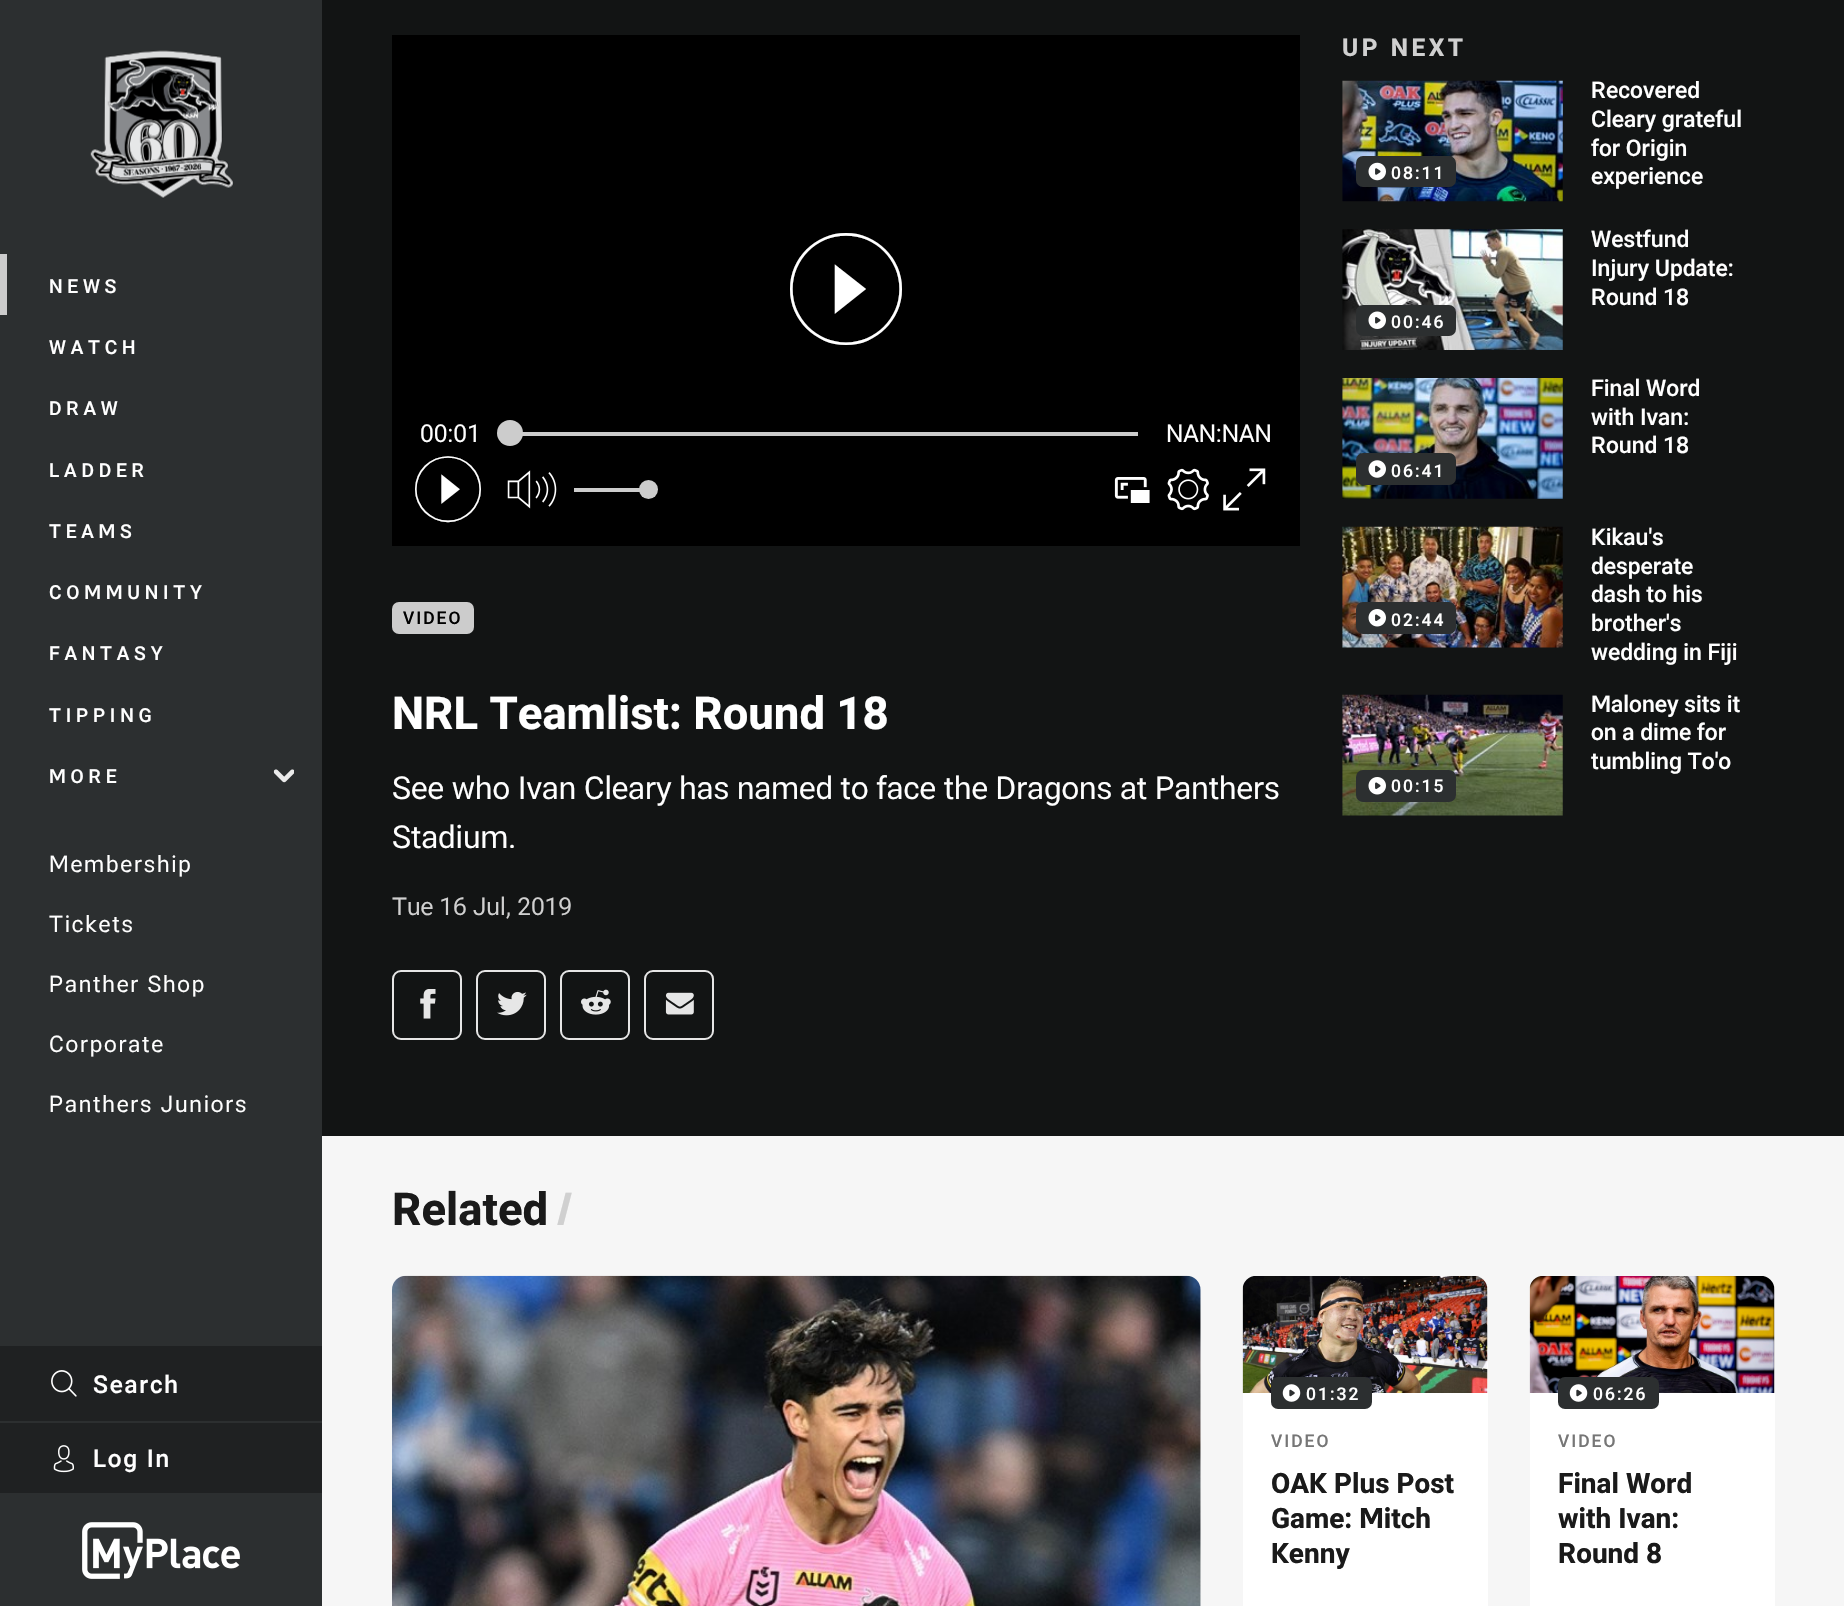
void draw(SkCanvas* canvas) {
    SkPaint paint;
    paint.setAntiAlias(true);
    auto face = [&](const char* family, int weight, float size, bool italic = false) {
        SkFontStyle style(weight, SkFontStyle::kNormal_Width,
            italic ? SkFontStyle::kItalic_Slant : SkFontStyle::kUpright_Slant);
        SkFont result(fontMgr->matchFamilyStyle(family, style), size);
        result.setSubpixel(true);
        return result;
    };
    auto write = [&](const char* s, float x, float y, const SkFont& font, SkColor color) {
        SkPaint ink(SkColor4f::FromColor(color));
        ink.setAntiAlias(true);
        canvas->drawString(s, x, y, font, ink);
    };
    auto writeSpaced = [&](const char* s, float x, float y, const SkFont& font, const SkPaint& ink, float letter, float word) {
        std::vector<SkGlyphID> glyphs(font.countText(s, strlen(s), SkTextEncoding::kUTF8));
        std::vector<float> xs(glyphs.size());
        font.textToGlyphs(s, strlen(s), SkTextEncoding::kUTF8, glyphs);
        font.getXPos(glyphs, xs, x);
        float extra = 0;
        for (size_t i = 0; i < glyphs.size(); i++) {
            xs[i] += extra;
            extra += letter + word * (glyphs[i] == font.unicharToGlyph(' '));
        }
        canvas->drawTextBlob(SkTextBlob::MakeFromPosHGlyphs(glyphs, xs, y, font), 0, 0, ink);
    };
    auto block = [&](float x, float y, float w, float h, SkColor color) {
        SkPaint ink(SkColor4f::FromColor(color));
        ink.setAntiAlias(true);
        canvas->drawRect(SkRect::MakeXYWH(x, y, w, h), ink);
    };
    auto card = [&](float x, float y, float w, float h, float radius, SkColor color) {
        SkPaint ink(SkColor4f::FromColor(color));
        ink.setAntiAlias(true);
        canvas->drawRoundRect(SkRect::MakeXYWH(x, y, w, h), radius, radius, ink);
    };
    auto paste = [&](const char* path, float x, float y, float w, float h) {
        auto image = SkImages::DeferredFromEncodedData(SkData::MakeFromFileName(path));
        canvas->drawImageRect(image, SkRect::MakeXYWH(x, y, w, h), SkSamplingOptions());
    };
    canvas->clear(SkColorSetRGB(246, 246, 246));
    block(0, 0, 322, 1606, SkColorSetRGB(44, 47, 48));
    paste("pic1.png", 90, 50, 144, 149);
    block(0, 254, 7, 61, SkColorSetRGB(204, 204, 204));
    auto kFont1 = face("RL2", 500, 19.25f);
    paint.setColor(SK_ColorWHITE);
    writeSpaced("NEWS", 49, 293, kFont1, paint, 4.75f, 0);
    writeSpaced("WATCH", 49, 354, kFont1, paint, 4.75f, 0);
    writeSpaced("DRAW", 49, 415, kFont1, paint, 4.75f, 0);
    writeSpaced("LADDER", 49, 477, kFont1, paint, 4.75f, 0);
    writeSpaced("TEAMS", 49, 538, kFont1, paint, 4.75f, 0);
    writeSpaced("COMMUNITY", 49, 599, kFont1, paint, 4.75f, 0);
    writeSpaced("FANTASY", 49, 660, kFont1, paint, 4.75f, 0);
    writeSpaced("TIPPING", 49, 722, kFont1, paint, 4.75f, 0);
    writeSpaced("MORE", 49, 783, kFont1, paint, 4.75f, 0);
    paste("pic2.png", 273, 769, 21, 14);
    auto kFont2 = face("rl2", 400, 22.75f);
    writeSpaced("Membership", 49, 872, kFont2, paint, 1.75f, 0);
    writeSpaced("Tickets", 49, 932, kFont2, paint, 1.75f, 0);
    writeSpaced("Panther Shop", 49, 992, kFont2, paint, 1.75f, 0);
    writeSpaced("Corporate", 49, 1052, kFont2, paint, 1.75f, 0);
    writeSpaced("Panthers Juniors", 49, 1112, kFont2, paint, 1.75f, 0);
    block(0, 1346, 322, 75, SkColorSetRGB(31, 33, 34));
    paste("pic3.png", 51, 1370, 26, 27);
    auto kFont3 = face("RL2", 500, 24.5f);
    writeSpaced("Search", 93, 1393, kFont3, paint, 1.75f, 0);
    block(0, 1423, 322, 70, SkColorSetRGB(31, 33, 34));
    paste("pic4.png", 53, 1445, 21, 28);
    writeSpaced("Log In", 93, 1467, kFont3, paint, 1.75f, 0);
    paste("pic5.png", 82, 1522, 158, 57);
    block(322, 0, 1522, 1136, SkColorSetRGB(18, 20, 20));
    block(392, 35, 908, 511, SK_ColorBLACK);
    auto kFont4 = face("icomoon", 400, 112);
    write(">", 790, 338, kFont4, SK_ColorWHITE);
    auto kFont5 = face("rl2", 400, 24.5f);
    write("00:01", 420, 442, kFont5, SK_ColorWHITE);
    block(522, 432, 616, 4, SkColorSetRGB(204, 204, 204));
    paint.setColor(SkColorSetRGB(204, 204, 204));
    canvas->drawCircle(510, 433, 13, paint);
    write("NAN:NAN", 1166, 442, kFont5, SK_ColorWHITE);
    auto kFont6 = face("icomoon", 400, 66);
    write(">", 415, 518, kFont6, SK_ColorWHITE);
    paste("pic6.png", 507, 470, 50, 39);
    block(574, 488, 74, 4, SkColorSetRGB(204, 204, 204));
    canvas->drawCircle(648.5f, 489.5f, 9.5f, paint);
    paste("pic7.png", 1114, 477, 36, 26);
    paste("pic8.png", 1167, 468, 42, 43);
    paste("pic9.png", 1223, 468, 43, 43);
    card(392, 602, 82, 32, 7, SkColorSetRGB(204, 204, 204));
    auto kFont7 = face("RL2", 500, 17.5f);
    paint.setColor(SK_ColorBLACK);
    writeSpaced("VIDEO", 403, 624, kFont7, paint, 2, 0);
    auto kFont8 = face("RL2", 700, 45.5f);
    write("NRL Teamlist: Round 18", 392, 729, kFont8, SK_ColorWHITE);
    auto kFont9 = face("rl2", 400, 31.5f);
    write("See who Ivan Cleary has named to face the Dragons at Panthers", 392, 799, kFont9, SK_ColorWHITE);
    write("Stadium.", 392, 848, kFont9, SK_ColorWHITE);
    write("Tue 16 Jul, 2019", 392, 915, kFont5, SkColorSetRGB(208, 208, 208));
    paint.setStyle(SkPaint::kStroke_Style);
    paint.setStrokeWidth(2);
    paint.setColor(SkColorSetRGB(230, 230, 230));
    canvas->drawRoundRect(SkRect::MakeXYWH(393, 971, 68, 68), 8, 8, paint);
    paste("pic10.png", 420, 989, 16, 30);
    canvas->drawRoundRect(SkRect::MakeXYWH(477, 971, 68, 68), 8, 8, paint);
    paste("pic11.png", 497, 991, 30, 25);
    canvas->drawRoundRect(SkRect::MakeXYWH(561, 971, 68, 68), 8, 8, paint);
    paste("pic12.png", 581, 989, 30, 26);
    canvas->drawRoundRect(SkRect::MakeXYWH(645, 971, 68, 68), 8, 8, paint);
    paste("pic13.png", 665, 992, 29, 23);
    auto kFont10 = face("RL2", 700, 24.5f);
    paint.setStyle(SkPaint::kFill_Style);
    paint.setColor(SkColorSetRGB(208, 208, 208));
    writeSpaced("UP NEXT", 1342, 56, kFont10, paint, 3.5f, 0);
    paste("pic14.png", 1342, 80, 221, 122);
    card(1356, 156, 100, 31, 7, SkColorSetRGB(44, 47, 48));
    paste("pic15.png", 1368, 162, 18, 19);
    paint.setColor(SK_ColorWHITE);
    writeSpaced("08:11", 1391, 179, kFont7, paint, 2, 0);
    canvas->save();
    canvas->clipRect(SkRect::MakeXYWH(1342, 81, 433, 1013));
    auto kFont11 = face("RL2", 500, 23);
    write("Recovered", 1591, 98, kFont11, SK_ColorWHITE);
    canvas->restore();
    write("Cleary grateful", 1591, 127, kFont11, SK_ColorWHITE);
    write("for Origin", 1591, 156, kFont11, SK_ColorWHITE);
    write("experience", 1591, 184, kFont11, SK_ColorWHITE);
    write("Westfund", 1591, 247, kFont11, SK_ColorWHITE);
    write("Injury Update:", 1591, 276, kFont11, SK_ColorWHITE);
    write("Round 18", 1591, 305, kFont11, SK_ColorWHITE);
    paste("pic16.png", 1342, 229, 221, 121);
    card(1356, 305, 100, 31, 7, SkColorSetRGB(44, 47, 48));
    paste("pic17.png", 1368, 311, 18, 18);
    writeSpaced("00:46", 1391, 328, kFont7, paint, 2, 0);
    write("Final Word", 1591, 396, kFont11, SK_ColorWHITE);
    write("with Ivan:", 1591, 425, kFont11, SK_ColorWHITE);
    write("Round 18", 1591, 453, kFont11, SK_ColorWHITE);
    paste("pic18.png", 1342, 378, 221, 121);
    card(1356, 453, 100, 32, 7, SkColorSetRGB(44, 47, 48));
    paste("pic19.png", 1368, 460, 18, 18);
    writeSpaced("06:41", 1391, 477, kFont7, paint, 2, 0);
    paste("pic20.png", 1342, 526, 221, 122);
    card(1356, 602, 100, 32, 7, SkColorSetRGB(44, 47, 48));
    paste("pic21.png", 1368, 609, 18, 18);
    writeSpaced("02:44", 1391, 626, kFont7, paint, 2, 0);
    write("Kikau's", 1591, 545, kFont11, SK_ColorWHITE);
    write("desperate", 1591, 574, kFont11, SK_ColorWHITE);
    write("dash to his", 1591, 602, kFont11, SK_ColorWHITE);
    write("brother's", 1591, 631, kFont11, SK_ColorWHITE);
    write("wedding in Fiji", 1591, 660, kFont11, SK_ColorWHITE);
    write("Maloney sits it", 1591, 712, kFont11, SK_ColorWHITE);
    write("on a dime for", 1591, 740, kFont11, SK_ColorWHITE);
    write("tumbling To'o", 1591, 769, kFont11, SK_ColorWHITE);
    paste("pic22.png", 1342, 694, 221, 122);
    card(1356, 770, 100, 32, 7, SkColorSetRGB(44, 47, 48));
    paste("pic21.png", 1368, 777, 18, 18);
    writeSpaced("00:15", 1391, 792, kFont7, paint, 2, 0);
    write("Related", 392, 1225, kFont8, SkColorSetRGB(26, 26, 26));
    write("/", 555, 1225, kFont8, SkColorSetRGB(208, 208, 208));
    card(392, 1276, 809, 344, 14, SK_ColorWHITE);
    paste("pic23.png", 392, 1275, 809, 331);
    card(1243, 1276, 245, 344, 14, SK_ColorWHITE);
    paste("pic24.png", 1242, 1276, 246, 117);
    card(1271, 1377, 101, 32, 7, SkColorSetRGB(44, 47, 48));
    paste("pic25.png", 1282, 1384, 19, 18);
    writeSpaced("01:32", 1306, 1400, kFont7, paint, 2, 0);
    paint.setColor(SkColorSetRGB(118, 118, 118));
    writeSpaced("VIDEO", 1271, 1447, kFont7, paint, 2, 0);
    auto kFont12 = face("RL2", 700, 28);
    write("OAK Plus Post", 1271, 1493, kFont12, SkColorSetRGB(26, 26, 26));
    write("Game: Mitch", 1271, 1528, kFont12, SkColorSetRGB(26, 26, 26));
    write("Kenny", 1271, 1563, kFont12, SkColorSetRGB(26, 26, 26));
    card(1530, 1276, 245, 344, 14, SK_ColorWHITE);
    paste("pic26.png", 1529, 1276, 246, 117);
    card(1558, 1377, 101, 32, 7, SkColorSetRGB(44, 47, 48));
    paste("pic25.png", 1569, 1384, 19, 18);
    paint.setColor(SK_ColorWHITE);
    writeSpaced("06:26", 1593, 1400, kFont7, paint, 2, 0);
    paint.setColor(SkColorSetRGB(118, 118, 118));
    writeSpaced("VIDEO", 1558, 1447, kFont7, paint, 2, 0);
    write("Final Word", 1558, 1493, kFont12, SkColorSetRGB(26, 26, 26));
    write("with Ivan:", 1558, 1528, kFont12, SkColorSetRGB(26, 26, 26));
    write("Round 8", 1558, 1563, kFont12, SkColorSetRGB(26, 26, 26));
}
